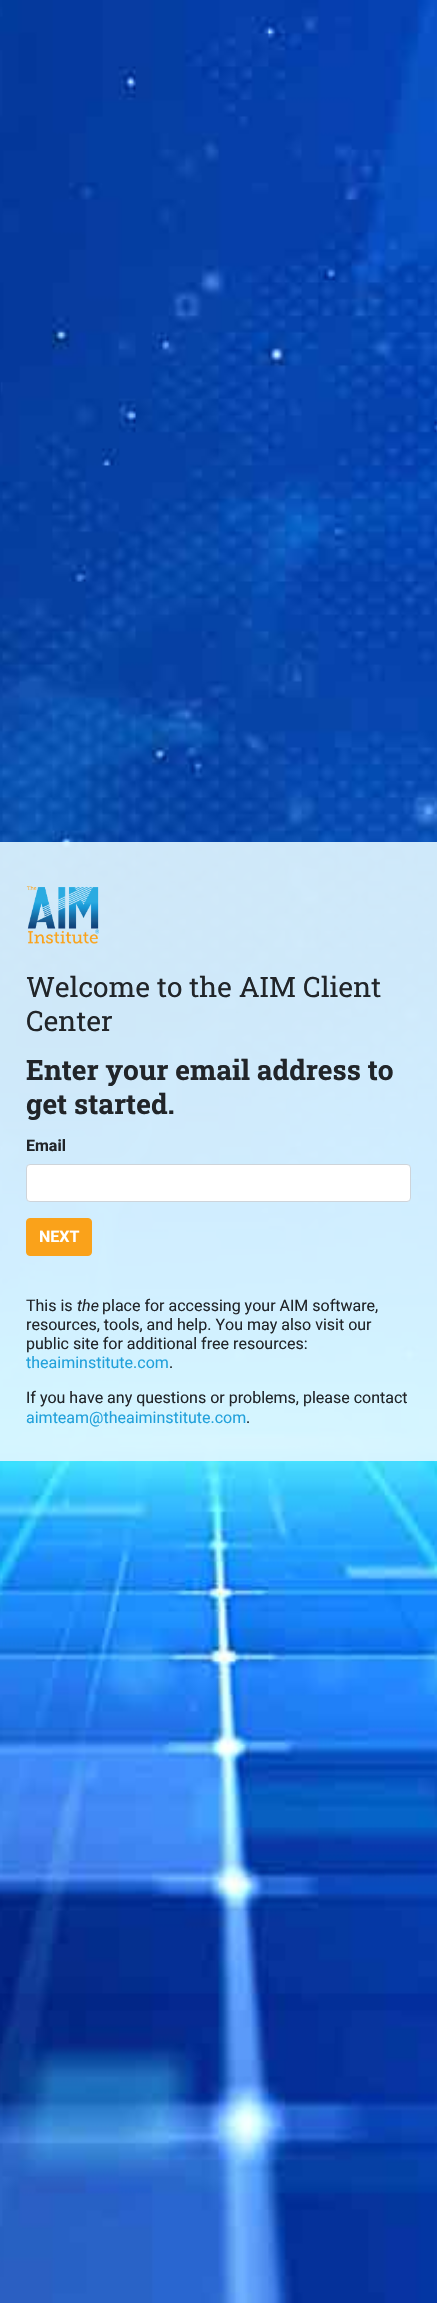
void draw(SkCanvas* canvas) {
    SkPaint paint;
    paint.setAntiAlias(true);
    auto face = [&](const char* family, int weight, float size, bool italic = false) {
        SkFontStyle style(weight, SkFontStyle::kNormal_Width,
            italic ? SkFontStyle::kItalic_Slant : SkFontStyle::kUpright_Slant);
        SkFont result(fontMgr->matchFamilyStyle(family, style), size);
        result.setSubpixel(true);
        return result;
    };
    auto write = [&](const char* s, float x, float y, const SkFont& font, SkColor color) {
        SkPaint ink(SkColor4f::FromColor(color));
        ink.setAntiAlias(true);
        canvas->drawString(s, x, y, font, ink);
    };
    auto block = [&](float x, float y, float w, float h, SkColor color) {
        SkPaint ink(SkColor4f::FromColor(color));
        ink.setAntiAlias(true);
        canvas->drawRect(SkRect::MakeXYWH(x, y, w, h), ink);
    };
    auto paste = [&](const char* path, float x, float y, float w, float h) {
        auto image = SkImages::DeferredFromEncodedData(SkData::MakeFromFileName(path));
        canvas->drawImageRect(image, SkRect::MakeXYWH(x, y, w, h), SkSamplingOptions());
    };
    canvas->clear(SK_ColorWHITE);
    paste("pic1.png", 0, 0, 437, 2303);
    block(0, 842, 437, 619, SkColorSetARGB(235, 224, 245, 255));
    paste("pic2.png", 26, 886, 73, 58);
    auto kFont1 = face("Roboto Slab", 400, 28);
    write("Welcome to the AIM Client", 26, 997, kFont1, SkColorSetRGB(33, 37, 41));
    write("Center", 26, 1031, kFont1, SkColorSetRGB(33, 37, 41));
    auto kFont2 = face("Roboto Slab", 700, 28);
    write("Enter your email address to", 26, 1080, kFont2, SkColorSetRGB(33, 37, 41));
    write("get started.", 26, 1114, kFont2, SkColorSetRGB(33, 37, 41));
    auto kFont3 = face("Roboto", 700, 16);
    write("Email", 26, 1151, kFont3, SkColorSetRGB(33, 37, 41));
    paint.setColor(SK_ColorWHITE);
    canvas->drawRoundRect(SkRect::MakeXYWH(26.5f, 1164.5f, 384, 37), 3.5f, 3.5f, paint);
    paint.setStyle(SkPaint::kStroke_Style);
    paint.setStrokeWidth(1);
    paint.setColor(SkColorSetRGB(206, 212, 218));
    canvas->drawRoundRect(SkRect::MakeXYWH(26.5f, 1164.5f, 384, 37), 3.5f, 3.5f, paint);
    paint.setStyle(SkPaint::kFill_Style);
    paint.setColor(SkColorSetRGB(250, 162, 26));
    canvas->drawRoundRect(SkRect::MakeXYWH(26.5f, 1218.5f, 65, 37), 3.5f, 3.5f, paint);
    paint.setStyle(SkPaint::kStroke_Style);
    canvas->drawRoundRect(SkRect::MakeXYWH(26.5f, 1218.5f, 65, 37), 3.5f, 3.5f, paint);
    write("NEXT", 39, 1242, kFont3, SK_ColorWHITE);
    auto kFont4 = face("Roboto", 400, 16);
    write("This is", 26, 1311, kFont4, SkColorSetRGB(33, 37, 41));
    auto kFont5 = face("Roboto", 400, 16, true);
    write("the", 77, 1311, kFont5, SkColorSetRGB(33, 37, 41));
    write("place for accessing your AIM software,", 102, 1311, kFont4, SkColorSetRGB(33, 37, 41));
    write("resources, tools, and help. You may also visit our", 26, 1330, kFont4, SkColorSetRGB(33, 37, 41));
    write("public site for additional free resources:", 26, 1349, kFont4, SkColorSetRGB(33, 37, 41));
    write("theaiminstitute.com", 26, 1368, kFont4, SkColorSetRGB(33, 161, 219));
    write(".", 169, 1368, kFont4, SkColorSetRGB(33, 37, 41));
    write("If you have any questions or problems, please contact", 26, 1403, kFont4, SkColorSetRGB(33, 37, 41));
    write("aimteam@theaiminstitute.com", 26, 1423, kFont4, SkColorSetRGB(33, 161, 219));
    write(".", 246, 1423, kFont4, SkColorSetRGB(33, 37, 41));
}
